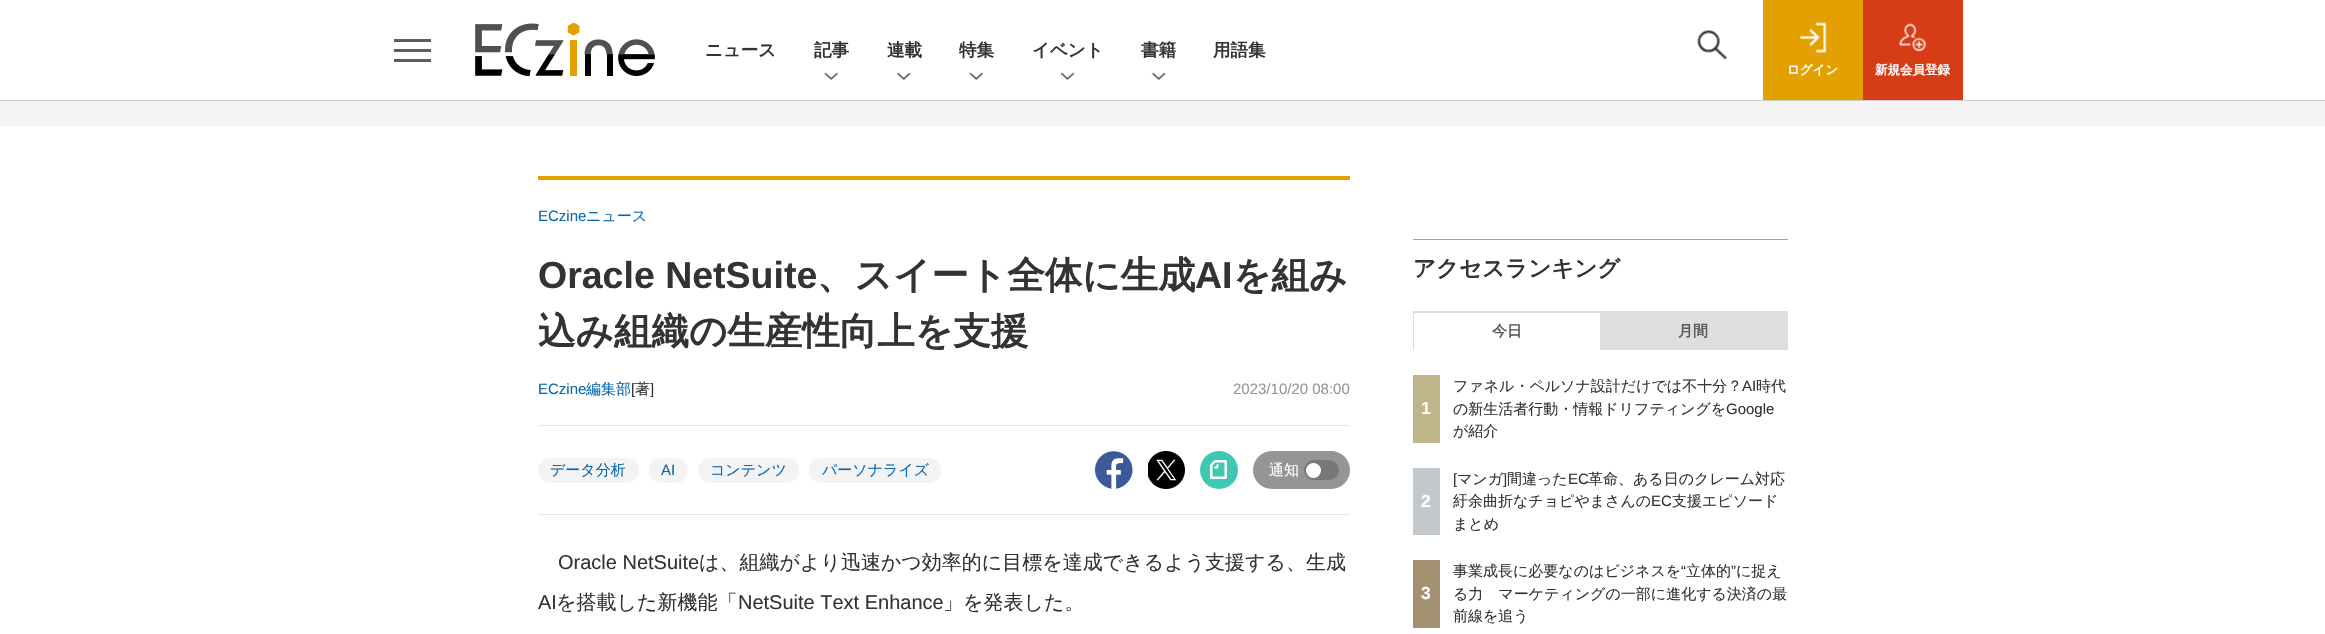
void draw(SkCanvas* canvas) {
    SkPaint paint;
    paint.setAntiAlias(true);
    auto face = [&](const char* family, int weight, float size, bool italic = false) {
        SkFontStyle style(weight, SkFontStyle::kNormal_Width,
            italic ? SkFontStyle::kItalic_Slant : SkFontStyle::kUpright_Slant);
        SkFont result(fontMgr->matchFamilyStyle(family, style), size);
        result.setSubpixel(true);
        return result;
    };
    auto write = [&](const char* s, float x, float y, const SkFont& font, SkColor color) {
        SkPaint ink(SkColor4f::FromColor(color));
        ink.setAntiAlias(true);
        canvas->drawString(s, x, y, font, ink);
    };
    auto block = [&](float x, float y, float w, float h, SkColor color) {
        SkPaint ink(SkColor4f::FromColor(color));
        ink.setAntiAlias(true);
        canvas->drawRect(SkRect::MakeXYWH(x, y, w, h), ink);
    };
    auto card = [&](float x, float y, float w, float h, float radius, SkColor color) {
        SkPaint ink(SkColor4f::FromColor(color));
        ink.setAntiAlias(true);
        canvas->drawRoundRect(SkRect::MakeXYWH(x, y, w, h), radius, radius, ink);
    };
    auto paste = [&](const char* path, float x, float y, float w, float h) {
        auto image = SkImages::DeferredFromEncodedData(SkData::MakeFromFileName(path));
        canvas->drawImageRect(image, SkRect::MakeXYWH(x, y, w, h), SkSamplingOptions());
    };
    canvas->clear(SK_ColorWHITE);
    block(0, 100, 2325, 1, SkColorSetRGB(204, 204, 204));
    block(394, 49, 37, 3, SkColorSetRGB(93, 93, 93));
    block(394, 39, 37, 3, SkColorSetRGB(93, 93, 93));
    block(394, 59, 37, 3, SkColorSetRGB(93, 93, 93));
    paste("pic1.png", 475, 23, 180, 53);
    auto kFont1 = face("WenQuanYi Zen Hei", 700, 17.5f);
    write("ニュース", 705, 56, kFont1, SkColorSetRGB(51, 51, 51));
    write("記事", 814, 56, kFont1, SkColorSetRGB(51, 51, 51));
    paste("pic2.png", 824, 72, 14, 8);
    write("連載", 887, 56, kFont1, SkColorSetRGB(51, 51, 51));
    paste("pic3.png", 896, 72, 15, 8);
    write("特集", 959, 56, kFont1, SkColorSetRGB(51, 51, 51));
    paste("pic4.png", 969, 72, 14, 8);
    write("イベント", 1032, 56, kFont1, SkColorSetRGB(51, 51, 51));
    paste("pic5.png", 1060, 72, 15, 8);
    write("書籍", 1141, 56, kFont1, SkColorSetRGB(51, 51, 51));
    paste("pic3.png", 1151, 72, 15, 8);
    write("用語集", 1213, 56, kFont1, SkColorSetRGB(51, 51, 51));
    paste("pic6.png", 1697, 30, 30, 30);
    block(1763, 0, 100, 100, SkColorSetRGB(228, 160, 0));
    paste("pic7.png", 1799, 22, 28, 31);
    auto kFont2 = face("WenQuanYi Zen Hei", 700, 12.5f);
    write("ログイン", 1787, 74, kFont2, SK_ColorWHITE);
    block(1863, 0, 100, 100, SkColorSetRGB(214, 60, 22));
    paste("pic8.png", 1899, 23, 27, 29);
    write("新規会員登録", 1875, 74, kFont2, SK_ColorWHITE);
    block(0, 101, 2325, 25, SkColorSetRGB(243, 243, 243));
    block(538, 176, 812, 4, SkColorSetRGB(228, 160, 0));
    block(538, 514, 812, 1, SkColorSetRGB(229, 229, 229));
    auto kFont3 = face("Liberation Sans", 400, 15);
    write("ECzine", 538, 221, kFont3, SkColorSetRGB(9, 103, 173));
    auto kFont4 = face("WenQuanYi Zen Hei", 500, 15);
    write("ニュース", 586, 221, kFont4, SkColorSetRGB(9, 103, 173));
    auto kFont5 = face("Liberation Sans", 700, 37.5f);
    write("Oracle NetSuite", 538, 288, kFont5, SkColorSetRGB(51, 51, 51));
    auto kFont6 = face("WenQuanYi Zen Hei", 700, 37.5f);
    write("、スイート全体に生成", 817, 288, kFont6, SkColorSetRGB(51, 51, 51));
    write("AI", 1195, 288, kFont5, SkColorSetRGB(51, 51, 51));
    write("を組み", 1233, 288, kFont6, SkColorSetRGB(51, 51, 51));
    write("込み組織の生産性向上を支援", 538, 344, kFont6, SkColorSetRGB(51, 51, 51));
    write("ECzine", 538, 394, kFont3, SkColorSetRGB(9, 103, 173));
    write("編集部", 586, 394, kFont4, SkColorSetRGB(9, 103, 173));
    write("[", 631, 394, kFont3, SkColorSetRGB(51, 51, 51));
    write("著", 635, 394, kFont4, SkColorSetRGB(51, 51, 51));
    write("]", 650, 394, kFont3, SkColorSetRGB(51, 51, 51));
    write("2023/10/20 08:00", 1233, 394, kFont3, SkColorSetRGB(149, 149, 149));
    block(538, 425, 812, 1, SkColorSetRGB(229, 229, 229));
    card(538, 458, 101, 25, 12.5f, SkColorSetRGB(243, 243, 243));
    write("データ分析", 550, 475, kFont4, SkColorSetRGB(9, 103, 173));
    card(649, 458, 39, 25, 12.5f, SkColorSetRGB(243, 243, 243));
    write("AI", 661, 475, kFont3, SkColorSetRGB(9, 103, 173));
    card(698, 458, 101, 25, 12.5f, SkColorSetRGB(243, 243, 243));
    write("コンテンツ", 710, 475, kFont4, SkColorSetRGB(9, 103, 173));
    card(809, 458, 132, 25, 12.5f, SkColorSetRGB(243, 243, 243));
    write("パーソナライズ", 822, 475, kFont4, SkColorSetRGB(9, 103, 173));
    paste("pic9.png", 1095, 451, 38, 38);
    paste("pic10.png", 1148, 451, 37, 38);
    paint.setColor(SkColorSetRGB(62, 200, 179));
    canvas->drawCircle(1219, 470, 19, paint);
    paint.setColor(SK_ColorWHITE);
    canvas->drawPath(SkPathBuilder(SkPathFillType::kEvenOdd).moveTo(1211.5f, 479).lineTo(1223, 479).cubicTo(1227.5f, 479, 1227, 479, 1227, 475).lineTo(1227, 464).cubicTo(1227, 460.5f, 1227.5f, 460, 1224, 460).lineTo(1215.5f, 460).cubicTo(1214.5f, 460, 1214, 461, 1213, 461.5f).cubicTo(1208.5f, 466, 1210, 465, 1210, 471.5f).lineTo(1210, 476).cubicTo(1210, 477, 1209.5f, 479, 1211.5f, 479).close().moveTo(1215.5f, 462.5f).lineTo(1224.5f, 462.5f).lineTo(1224.5f, 476.5f).lineTo(1212.5f, 476.5f).lineTo(1212.5f, 465.5f).close().moveTo(1215, 468.5f).cubicTo(1217.5f, 468.5f, 1218.5f, 469, 1218.5f, 466).cubicTo(1218.5f, 465.5f, 1218.5f, 463.5f, 1217.5f, 464).lineTo(1216.5f, 464.5f).lineTo(1216.5f, 466.5f).lineTo(1214.5f, 466.5f).cubicTo(1213.5f, 467, 1214, 468.5f, 1215, 468.5f).close().detach(), paint);
    card(1253, 451, 97, 38, 19, SkColorSetRGB(149, 149, 149));
    write("通知", 1269, 475, kFont4, SK_ColorWHITE);
    card(1304, 460, 35, 20, 10, SkColorSetRGB(119, 119, 119));
    canvas->drawCircle(1313.5f, 470.5f, 7.5f, paint);
    auto kFont7 = face("Liberation Sans", 400, 20);
    write("Oracle NetSuite", 558, 569, kFont7, SkColorSetRGB(51, 51, 51));
    auto kFont8 = face("WenQuanYi Zen Hei", 500, 20);
    write("は、組織がより迅速かつ効率的に目標を達成できるよう支援する、生成", 699, 569, kFont8, SkColorSetRGB(51, 51, 51));
    write("AI", 538, 609, kFont7, SkColorSetRGB(51, 51, 51));
    write("を搭載した新機能「", 556, 609, kFont8, SkColorSetRGB(51, 51, 51));
    write("NetSuite Text Enhance", 738, 609, kFont7, SkColorSetRGB(51, 51, 51));
    write("」を発表した。", 943, 609, kFont8, SkColorSetRGB(51, 51, 51));
    block(1413, 239, 375, 1, SkColorSetRGB(228, 160, 0));
    auto kFont9 = face("WenQuanYi Zen Hei", 700, 22.5f);
    write("アクセスランキング", 1413, 276, kFont9, SkColorSetRGB(51, 51, 51));
    block(1413, 311, 375, 39, SkColorSetRGB(222, 222, 222));
    block(1414, 313, 186, 37, SK_ColorWHITE);
    auto kFont10 = face("WenQuanYi Zen Hei", 700, 15);
    write("今日", 1492, 336, kFont10, SkColorSetRGB(93, 93, 93));
    write("月間", 1678, 336, kFont10, SkColorSetRGB(93, 93, 93));
    block(1413, 375, 27, 68, SkColorSetRGB(191, 181, 139));
    auto kFont11 = face("Liberation Sans", 700, 17.5f);
    write("1", 1421, 414, kFont11, SK_ColorWHITE);
    write("ファネル・ペルソナ設計だけでは不十分？", 1453, 391, kFont4, SkColorSetRGB(51, 51, 51));
    write("AI", 1742, 391, kFont3, SkColorSetRGB(51, 51, 51));
    write("時代", 1756, 391, kFont4, SkColorSetRGB(51, 51, 51));
    write("の新生活者行動・情報ドリフティングを", 1453, 414, kFont4, SkColorSetRGB(51, 51, 51));
    write("Google", 1726, 414, kFont3, SkColorSetRGB(51, 51, 51));
    write("が紹介", 1453, 436, kFont4, SkColorSetRGB(51, 51, 51));
    block(1413, 468, 27, 67, SkColorSetRGB(194, 200, 204));
    write("2", 1421, 507, kFont11, SK_ColorWHITE);
    write("[", 1453, 484, kFont3, SkColorSetRGB(51, 51, 51));
    write("マンガ", 1457, 484, kFont4, SkColorSetRGB(51, 51, 51));
    write("]", 1503, 484, kFont3, SkColorSetRGB(51, 51, 51));
    write("間違った", 1507, 484, kFont4, SkColorSetRGB(51, 51, 51));
    write("EC", 1568, 484, kFont3, SkColorSetRGB(51, 51, 51));
    write("革命、ある日のクレーム対応", 1588, 484, kFont4, SkColorSetRGB(51, 51, 51));
    write("紆余曲折なチョピやまさんの", 1453, 506, kFont4, SkColorSetRGB(51, 51, 51));
    write("EC", 1651, 506, kFont3, SkColorSetRGB(51, 51, 51));
    write("支援エピソード", 1672, 506, kFont4, SkColorSetRGB(51, 51, 51));
    write("まとめ", 1453, 529, kFont4, SkColorSetRGB(51, 51, 51));
    block(1413, 560, 27, 68, SkColorSetRGB(163, 145, 113));
    write("3", 1421, 599, kFont11, SK_ColorWHITE);
    write("事業成長に必要なのはビジネスを", 1453, 576, kFont4, SkColorSetRGB(51, 51, 51));
    write("“", 1681, 576, kFont3, SkColorSetRGB(51, 51, 51));
    write("立体的", 1686, 576, kFont4, SkColorSetRGB(51, 51, 51));
    write("”", 1731, 576, kFont3, SkColorSetRGB(51, 51, 51));
    write("に捉え", 1736, 576, kFont4, SkColorSetRGB(51, 51, 51));
    write("る力　マーケティングの一部に進化する決済の最", 1453, 599, kFont4, SkColorSetRGB(51, 51, 51));
    write("前線を追う", 1453, 621, kFont4, SkColorSetRGB(51, 51, 51));
}
